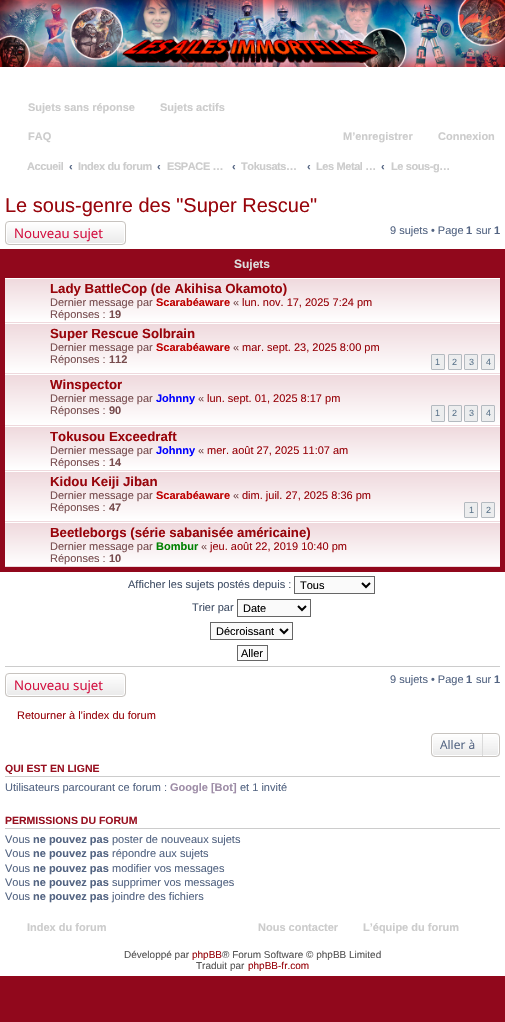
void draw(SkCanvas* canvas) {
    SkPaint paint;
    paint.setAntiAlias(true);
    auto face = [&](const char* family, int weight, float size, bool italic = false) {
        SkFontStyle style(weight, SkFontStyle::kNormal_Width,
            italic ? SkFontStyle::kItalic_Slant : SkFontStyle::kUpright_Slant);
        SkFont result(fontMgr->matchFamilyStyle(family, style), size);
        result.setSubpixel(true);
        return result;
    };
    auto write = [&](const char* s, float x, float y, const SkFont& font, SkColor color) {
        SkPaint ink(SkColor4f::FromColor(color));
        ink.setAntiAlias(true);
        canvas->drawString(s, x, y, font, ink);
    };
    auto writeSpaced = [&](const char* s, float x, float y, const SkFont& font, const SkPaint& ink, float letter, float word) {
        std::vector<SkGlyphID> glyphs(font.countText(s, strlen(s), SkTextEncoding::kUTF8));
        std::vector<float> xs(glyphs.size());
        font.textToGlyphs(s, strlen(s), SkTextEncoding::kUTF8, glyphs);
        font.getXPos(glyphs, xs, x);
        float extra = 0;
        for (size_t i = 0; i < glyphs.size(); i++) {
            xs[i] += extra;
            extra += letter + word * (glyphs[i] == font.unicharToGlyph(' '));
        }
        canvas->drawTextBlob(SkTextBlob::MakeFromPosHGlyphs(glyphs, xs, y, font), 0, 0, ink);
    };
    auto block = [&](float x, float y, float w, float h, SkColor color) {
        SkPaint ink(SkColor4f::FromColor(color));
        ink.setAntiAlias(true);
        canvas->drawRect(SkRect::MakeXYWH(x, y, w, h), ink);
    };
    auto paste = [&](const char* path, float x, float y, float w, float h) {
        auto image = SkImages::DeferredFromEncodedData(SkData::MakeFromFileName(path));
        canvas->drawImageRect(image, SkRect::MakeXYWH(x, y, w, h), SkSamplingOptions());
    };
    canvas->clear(SkColorSetRGB(145, 8, 28));
    block(0, 67, 505, 909, SK_ColorWHITE);
    paste("pic1.png", 0, 0, 505, 67);
    auto kFont1 = face("Liberation Sans", 700, 11);
    write("Sujets sans réponse", 28, 111, kFont1, SkColorSetRGB(204, 204, 204));
    write("Sujets actifs", 160, 111, kFont1, SkColorSetRGB(204, 204, 204));
    write("FAQ", 28, 140, kFont1, SkColorSetRGB(204, 204, 204));
    write("M’enregistrer", 343, 140, kFont1, SkColorSetRGB(204, 204, 204));
    write("Connexion", 438, 140, kFont1, SkColorSetRGB(204, 204, 204));
    paint.setColor(SkColorSetRGB(204, 204, 204));
    writeSpaced("Accueil", 27, 170, kFont1, paint, -0.4f, 0);
    write("‹", 69, 170, kFont1, SkColorSetRGB(83, 100, 130));
    writeSpaced("Index du forum", 78, 170, kFont1, paint, -0.4f, 0);
    write("‹", 157, 170, kFont1, SkColorSetRGB(83, 100, 130));
    writeSpaced("ESPACE …", 167, 170, kFont1, paint, -0.4f, 0);
    write("‹", 232, 170, kFont1, SkColorSetRGB(83, 100, 130));
    writeSpaced("Tokusats…", 241, 170, kFont1, paint, -0.4f, 0);
    write("‹", 307, 170, kFont1, SkColorSetRGB(83, 100, 130));
    writeSpaced("Les Metal …", 316, 170, kFont1, paint, -0.4f, 0);
    write("‹", 381, 170, kFont1, SkColorSetRGB(83, 100, 130));
    writeSpaced("Le sous-g…", 391, 170, kFont1, paint, -0.4f, 0);
    auto kFont2 = face("Liberation Sans", 400, 20);
    write("Le sous-genre des \"Super Rescue\"", 5, 212, kFont2, SkColorSetRGB(152, 5, 12));
    canvas->save();
    canvas->clipPath(SkPathBuilder().moveTo(9, 221).lineTo(122, 221).cubicTo(124, 221, 126, 223, 126, 225).lineTo(126, 241).cubicTo(126, 243, 124, 245, 122, 245).lineTo(9, 245).cubicTo(7, 245, 5, 243, 5, 241).lineTo(5, 225).cubicTo(5, 223, 7, 221, 9, 221).close().detach(), true);
    {
        const SkColor colors[] = {SK_ColorWHITE, SkColorSetRGB(233, 233, 233)};
        const float stops[] = {0, 1};
        const SkPoint ends[] = {{66, 222}, {66, 244}};
        paint.setShader(SkGradientShader::MakeLinear(ends, colors, stops, 2, SkTileMode::kClamp));
        paint.setAlpha(255);
    }
    canvas->drawRect(SkRect::MakeXYWH(5, 222, 121, 22), paint);
    canvas->restore();
    paint.setStyle(SkPaint::kStroke_Style);
    paint.setStrokeWidth(1);
    paint.setShader(nullptr);
    paint.setColor(SK_ColorWHITE);
    canvas->drawRoundRect(SkRect::MakeXYWH(6.5f, 222.5f, 118, 21), 2.5f, 2.5f, paint);
    paint.setColor(SkColorSetRGB(199, 195, 191));
    canvas->drawRoundRect(SkRect::MakeXYWH(5.5f, 221.5f, 120, 23), 3.5f, 3.5f, paint);
    auto kFont3 = face("Open Sans", 400, 13.25f);
    write("Nouveau sujet", 14, 238, kFont3, SkColorSetRGB(211, 17, 65));
    auto kFont4 = face("Liberation Sans", 400, 11);
    write("9 sujets • Page", 390, 234, kFont4, SkColorSetRGB(83, 100, 130));
    write("1", 466, 234, kFont1, SkColorSetRGB(83, 100, 130));
    write("sur", 476, 234, kFont4, SkColorSetRGB(83, 100, 130));
    write("1", 494, 234, kFont1, SkColorSetRGB(83, 100, 130));
    block(0, 249, 505, 323, SkColorSetRGB(145, 8, 28));
    auto kFont5 = face("Liberation Sans", 700, 12);
    write("Sujets", 234, 268, kFont5, SkColorSetRGB(221, 221, 221));
    block(5, 322, 495, 1, SkColorSetRGB(239, 217, 221));
    paint.setStyle(SkPaint::kFill_Style);
    {
        const SkColor colors[] = {SkColorSetRGB(239, 217, 221), SK_ColorWHITE};
        const float stops[] = {0, 1};
        const SkPoint ends[] = {{253, 236}, {253, 279}};
        paint.setShader(SkGradientShader::MakeLinear(ends, colors, stops, 2, SkTileMode::kClamp));
        paint.setAlpha(255);
    }
    canvas->drawRect(SkRect::MakeXYWH(5, 278, 495, 1), paint);
    {
        const SkColor colors[] = {SkColorSetRGB(239, 217, 221), SK_ColorWHITE};
        const float stops[] = {0, 1};
        const SkPoint ends[] = {{253, 279}, {253, 322}};
        paint.setShader(SkGradientShader::MakeLinear(ends, colors, stops, 2, SkTileMode::kClamp));
        paint.setAlpha(255);
    }
    canvas->drawRect(SkRect::MakeXYWH(5, 279, 495, 43), paint);
    auto kFont6 = face("Liberation Sans", 700, 13.25f);
    write("Lady BattleCop (de Akihisa Okamoto)", 50, 293, kFont6, SkColorSetRGB(152, 5, 12));
    write("Dernier message par", 50, 306, kFont4, SkColorSetRGB(119, 76, 78));
    write("Scarabéaware", 156, 306, kFont1, SkColorSetRGB(191, 0, 0));
    write("«", 233, 306, kFont4, SkColorSetRGB(119, 76, 78));
    write("lun. nov. 17, 2025 7:24 pm", 242, 306, kFont4, SkColorSetRGB(152, 5, 12));
    write("Réponses :", 50, 318, kFont4, SkColorSetRGB(119, 76, 78));
    write("19", 109, 318, kFont1, SkColorSetRGB(119, 76, 78));
    block(5, 373, 495, 1, SkColorSetRGB(239, 217, 221));
    {
        const SkColor colors[] = {SkColorSetRGB(239, 217, 221), SK_ColorWHITE};
        const float stops[] = {0, 1};
        const SkPoint ends[] = {{253, 275}, {253, 324}};
        paint.setShader(SkGradientShader::MakeLinear(ends, colors, stops, 2, SkTileMode::kClamp));
        paint.setAlpha(255);
    }
    canvas->drawRect(SkRect::MakeXYWH(5, 323, 495, 1), paint);
    {
        const SkColor colors[] = {SkColorSetRGB(239, 217, 221), SK_ColorWHITE};
        const float stops[] = {0, 1};
        const SkPoint ends[] = {{253, 324}, {253, 373}};
        paint.setShader(SkGradientShader::MakeLinear(ends, colors, stops, 2, SkTileMode::kClamp));
        paint.setAlpha(255);
    }
    canvas->drawRect(SkRect::MakeXYWH(5, 324, 495, 49), paint);
    write("Super Rescue Solbrain", 50, 338, kFont6, SkColorSetRGB(152, 5, 12));
    write("Dernier message par", 50, 351, kFont4, SkColorSetRGB(119, 76, 78));
    write("Scarabéaware", 156, 351, kFont1, SkColorSetRGB(191, 0, 0));
    write("«", 233, 351, kFont4, SkColorSetRGB(119, 76, 78));
    write("mar. sept. 23, 2025 8:00 pm", 242, 351, kFont4, SkColorSetRGB(152, 5, 12));
    write("Réponses :", 50, 363, kFont4, SkColorSetRGB(119, 76, 78));
    write("112", 109, 363, kFont1, SkColorSetRGB(119, 76, 78));
    paint.setShader(nullptr);
    paint.setColor(SkColorSetRGB(236, 237, 238));
    canvas->drawRoundRect(SkRect::MakeXYWH(431.5f, 354.5f, 13, 15), 0.5f, 0.5f, paint);
    paint.setStyle(SkPaint::kStroke_Style);
    paint.setColor(SkColorSetRGB(180, 186, 192));
    canvas->drawRoundRect(SkRect::MakeXYWH(431.5f, 354.5f, 13, 15), 0.5f, 0.5f, paint);
    auto kFont7 = face("Liberation Sans", 400, 9);
    write("1", 435, 365, kFont7, SkColorSetRGB(92, 117, 140));
    paint.setStyle(SkPaint::kFill_Style);
    paint.setColor(SkColorSetRGB(236, 237, 238));
    canvas->drawRoundRect(SkRect::MakeXYWH(448.5f, 354.5f, 13, 15), 0.5f, 0.5f, paint);
    paint.setStyle(SkPaint::kStroke_Style);
    paint.setColor(SkColorSetRGB(180, 186, 192));
    canvas->drawRoundRect(SkRect::MakeXYWH(448.5f, 354.5f, 13, 15), 0.5f, 0.5f, paint);
    write("2", 452, 365, kFont7, SkColorSetRGB(92, 117, 140));
    paint.setStyle(SkPaint::kFill_Style);
    paint.setColor(SkColorSetRGB(236, 237, 238));
    canvas->drawRoundRect(SkRect::MakeXYWH(464.5f, 354.5f, 13, 15), 0.5f, 0.5f, paint);
    paint.setStyle(SkPaint::kStroke_Style);
    paint.setColor(SkColorSetRGB(180, 186, 192));
    canvas->drawRoundRect(SkRect::MakeXYWH(464.5f, 354.5f, 13, 15), 0.5f, 0.5f, paint);
    write("3", 469, 365, kFont7, SkColorSetRGB(92, 117, 140));
    paint.setStyle(SkPaint::kFill_Style);
    paint.setColor(SkColorSetRGB(236, 237, 238));
    canvas->drawRoundRect(SkRect::MakeXYWH(481.5f, 354.5f, 13, 15), 0.5f, 0.5f, paint);
    paint.setStyle(SkPaint::kStroke_Style);
    paint.setColor(SkColorSetRGB(180, 186, 192));
    canvas->drawRoundRect(SkRect::MakeXYWH(481.5f, 354.5f, 13, 15), 0.5f, 0.5f, paint);
    write("4", 486, 365, kFont7, SkColorSetRGB(92, 117, 140));
    block(5, 425, 495, 1, SkColorSetRGB(239, 217, 221));
    paint.setStyle(SkPaint::kFill_Style);
    {
        const SkColor colors[] = {SkColorSetRGB(239, 217, 221), SK_ColorWHITE};
        const float stops[] = {0, 1};
        const SkPoint ends[] = {{253, 325}, {253, 375}};
        paint.setShader(SkGradientShader::MakeLinear(ends, colors, stops, 2, SkTileMode::kClamp));
        paint.setAlpha(255);
    }
    canvas->drawRect(SkRect::MakeXYWH(5, 374, 495, 1), paint);
    {
        const SkColor colors[] = {SkColorSetRGB(239, 217, 221), SK_ColorWHITE};
        const float stops[] = {0, 1};
        const SkPoint ends[] = {{253, 375}, {253, 425}};
        paint.setShader(SkGradientShader::MakeLinear(ends, colors, stops, 2, SkTileMode::kClamp));
        paint.setAlpha(255);
    }
    canvas->drawRect(SkRect::MakeXYWH(5, 375, 495, 50), paint);
    write("Winspector", 50, 389, kFont6, SkColorSetRGB(152, 5, 12));
    write("Dernier message par", 50, 402, kFont4, SkColorSetRGB(119, 76, 78));
    write("Johnny", 156, 402, kFont1, SkColorSetRGB(0, 0, 255));
    write("«", 198, 402, kFont4, SkColorSetRGB(119, 76, 78));
    write("lun. sept. 01, 2025 8:17 pm", 207, 402, kFont4, SkColorSetRGB(152, 5, 12));
    write("Réponses :", 50, 414, kFont4, SkColorSetRGB(119, 76, 78));
    write("90", 109, 414, kFont1, SkColorSetRGB(119, 76, 78));
    paint.setShader(nullptr);
    paint.setColor(SkColorSetRGB(236, 237, 238));
    canvas->drawRoundRect(SkRect::MakeXYWH(431.5f, 405.5f, 13, 16), 0.5f, 0.5f, paint);
    paint.setStyle(SkPaint::kStroke_Style);
    paint.setColor(SkColorSetRGB(180, 186, 192));
    canvas->drawRoundRect(SkRect::MakeXYWH(431.5f, 405.5f, 13, 16), 0.5f, 0.5f, paint);
    write("1", 435, 416, kFont7, SkColorSetRGB(92, 117, 140));
    paint.setStyle(SkPaint::kFill_Style);
    paint.setColor(SkColorSetRGB(236, 237, 238));
    canvas->drawRoundRect(SkRect::MakeXYWH(448.5f, 405.5f, 13, 16), 0.5f, 0.5f, paint);
    paint.setStyle(SkPaint::kStroke_Style);
    paint.setColor(SkColorSetRGB(180, 186, 192));
    canvas->drawRoundRect(SkRect::MakeXYWH(448.5f, 405.5f, 13, 16), 0.5f, 0.5f, paint);
    write("2", 452, 416, kFont7, SkColorSetRGB(92, 117, 140));
    paint.setStyle(SkPaint::kFill_Style);
    paint.setColor(SkColorSetRGB(236, 237, 238));
    canvas->drawRoundRect(SkRect::MakeXYWH(464.5f, 405.5f, 13, 16), 0.5f, 0.5f, paint);
    paint.setStyle(SkPaint::kStroke_Style);
    paint.setColor(SkColorSetRGB(180, 186, 192));
    canvas->drawRoundRect(SkRect::MakeXYWH(464.5f, 405.5f, 13, 16), 0.5f, 0.5f, paint);
    write("3", 469, 416, kFont7, SkColorSetRGB(92, 117, 140));
    paint.setStyle(SkPaint::kFill_Style);
    paint.setColor(SkColorSetRGB(236, 237, 238));
    canvas->drawRoundRect(SkRect::MakeXYWH(481.5f, 405.5f, 13, 16), 0.5f, 0.5f, paint);
    paint.setStyle(SkPaint::kStroke_Style);
    paint.setColor(SkColorSetRGB(180, 186, 192));
    canvas->drawRoundRect(SkRect::MakeXYWH(481.5f, 405.5f, 13, 16), 0.5f, 0.5f, paint);
    write("4", 486, 416, kFont7, SkColorSetRGB(92, 117, 140));
    block(5, 470, 495, 1, SkColorSetRGB(239, 217, 221));
    paint.setStyle(SkPaint::kFill_Style);
    {
        const SkColor colors[] = {SkColorSetRGB(239, 217, 221), SK_ColorWHITE};
        const float stops[] = {0, 1};
        const SkPoint ends[] = {{253, 384}, {253, 427}};
        paint.setShader(SkGradientShader::MakeLinear(ends, colors, stops, 2, SkTileMode::kClamp));
        paint.setAlpha(255);
    }
    canvas->drawRect(SkRect::MakeXYWH(5, 426, 495, 1), paint);
    {
        const SkColor colors[] = {SkColorSetRGB(239, 217, 221), SK_ColorWHITE};
        const float stops[] = {0, 1};
        const SkPoint ends[] = {{253, 427}, {253, 470}};
        paint.setShader(SkGradientShader::MakeLinear(ends, colors, stops, 2, SkTileMode::kClamp));
        paint.setAlpha(255);
    }
    canvas->drawRect(SkRect::MakeXYWH(5, 427, 495, 43), paint);
    write("Tokusou Exceedraft", 50, 441, kFont6, SkColorSetRGB(152, 5, 12));
    write("Dernier message par", 50, 454, kFont4, SkColorSetRGB(119, 76, 78));
    write("Johnny", 156, 454, kFont1, SkColorSetRGB(0, 0, 255));
    write("«", 198, 454, kFont4, SkColorSetRGB(119, 76, 78));
    write("mer. août 27, 2025 11:07 am", 207, 454, kFont4, SkColorSetRGB(152, 5, 12));
    write("Réponses :", 50, 466, kFont4, SkColorSetRGB(119, 76, 78));
    write("14", 109, 466, kFont1, SkColorSetRGB(119, 76, 78));
    block(5, 521, 495, 1, SkColorSetRGB(239, 217, 221));
    {
        const SkColor colors[] = {SkColorSetRGB(239, 217, 221), SK_ColorWHITE};
        const float stops[] = {0, 1};
        const SkPoint ends[] = {{253, 423}, {253, 472}};
        paint.setShader(SkGradientShader::MakeLinear(ends, colors, stops, 2, SkTileMode::kClamp));
        paint.setAlpha(255);
    }
    canvas->drawRect(SkRect::MakeXYWH(5, 471, 495, 1), paint);
    {
        const SkColor colors[] = {SkColorSetRGB(239, 217, 221), SK_ColorWHITE};
        const float stops[] = {0, 1};
        const SkPoint ends[] = {{253, 472}, {253, 521}};
        paint.setShader(SkGradientShader::MakeLinear(ends, colors, stops, 2, SkTileMode::kClamp));
        paint.setAlpha(255);
    }
    canvas->drawRect(SkRect::MakeXYWH(5, 472, 495, 49), paint);
    write("Kidou Keiji Jiban", 50, 486, kFont6, SkColorSetRGB(152, 5, 12));
    write("Dernier message par", 50, 499, kFont4, SkColorSetRGB(119, 76, 78));
    write("Scarabéaware", 156, 499, kFont1, SkColorSetRGB(191, 0, 0));
    write("«", 233, 499, kFont4, SkColorSetRGB(119, 76, 78));
    write("dim. juil. 27, 2025 8:36 pm", 242, 499, kFont4, SkColorSetRGB(152, 5, 12));
    write("Réponses :", 50, 511, kFont4, SkColorSetRGB(119, 76, 78));
    write("47", 109, 511, kFont1, SkColorSetRGB(119, 76, 78));
    paint.setShader(nullptr);
    paint.setColor(SkColorSetRGB(236, 237, 238));
    canvas->drawRoundRect(SkRect::MakeXYWH(464.5f, 502.5f, 13, 15), 0.5f, 0.5f, paint);
    paint.setStyle(SkPaint::kStroke_Style);
    paint.setColor(SkColorSetRGB(180, 186, 192));
    canvas->drawRoundRect(SkRect::MakeXYWH(464.5f, 502.5f, 13, 15), 0.5f, 0.5f, paint);
    write("1", 469, 513, kFont7, SkColorSetRGB(92, 117, 140));
    paint.setStyle(SkPaint::kFill_Style);
    paint.setColor(SkColorSetRGB(236, 237, 238));
    canvas->drawRoundRect(SkRect::MakeXYWH(481.5f, 502.5f, 13, 15), 0.5f, 0.5f, paint);
    paint.setStyle(SkPaint::kStroke_Style);
    paint.setColor(SkColorSetRGB(180, 186, 192));
    canvas->drawRoundRect(SkRect::MakeXYWH(481.5f, 502.5f, 13, 15), 0.5f, 0.5f, paint);
    write("2", 486, 513, kFont7, SkColorSetRGB(92, 117, 140));
    block(5, 566, 495, 1, SkColorSetRGB(239, 217, 221));
    paint.setStyle(SkPaint::kFill_Style);
    {
        const SkColor colors[] = {SkColorSetRGB(239, 217, 221), SK_ColorWHITE};
        const float stops[] = {0, 1};
        const SkPoint ends[] = {{253, 480}, {253, 523}};
        paint.setShader(SkGradientShader::MakeLinear(ends, colors, stops, 2, SkTileMode::kClamp));
        paint.setAlpha(255);
    }
    canvas->drawRect(SkRect::MakeXYWH(5, 522, 495, 1), paint);
    {
        const SkColor colors[] = {SkColorSetRGB(239, 217, 221), SK_ColorWHITE};
        const float stops[] = {0, 1};
        const SkPoint ends[] = {{253, 523}, {253, 566}};
        paint.setShader(SkGradientShader::MakeLinear(ends, colors, stops, 2, SkTileMode::kClamp));
        paint.setAlpha(255);
    }
    canvas->drawRect(SkRect::MakeXYWH(5, 523, 495, 43), paint);
    write("Beetleborgs (série sabanisée américaine)", 50, 537, kFont6, SkColorSetRGB(152, 5, 12));
    write("Dernier message par", 50, 550, kFont4, SkColorSetRGB(119, 76, 78));
    write("Bombur", 156, 550, kFont1, SkColorSetRGB(0, 128, 0));
    write("«", 201, 550, kFont4, SkColorSetRGB(119, 76, 78));
    write("jeu. août 22, 2019 10:40 pm", 210, 550, kFont4, SkColorSetRGB(152, 5, 12));
    write("Réponses :", 50, 562, kFont4, SkColorSetRGB(119, 76, 78));
    write("10", 109, 562, kFont1, SkColorSetRGB(119, 76, 78));
    write("Afficher les sujets postés depuis :", 128, 588, kFont4, SkColorSetRGB(66, 80, 103));
    paint.setShader(nullptr);
    paint.setColor(SkColorSetRGB(250, 250, 250));
    canvas->drawRect(SkRect::MakeXYWH(294.5f, 576.5f, 80, 17), paint);
    paint.setStyle(SkPaint::kStroke_Style);
    paint.setColor(SkColorSetRGB(102, 102, 102));
    canvas->drawRect(SkRect::MakeXYWH(294.5f, 576.5f, 80, 17), paint);
    paint.setStrokeWidth(2);
    paint.setColor(SK_ColorBLACK);
    canvas->drawPath(SkPathBuilder().moveTo(362, 583).lineTo(366, 587).lineTo(370, 583).detach(), paint);
    write("Tous", 300, 589, kFont4, SK_ColorBLACK);
    write("Trier par", 192, 611, kFont4, SkColorSetRGB(66, 80, 103));
    paint.setStyle(SkPaint::kFill_Style);
    paint.setColor(SkColorSetRGB(250, 250, 250));
    canvas->drawRect(SkRect::MakeXYWH(237.5f, 599.5f, 73, 17), paint);
    paint.setStyle(SkPaint::kStroke_Style);
    paint.setStrokeWidth(1);
    paint.setColor(SkColorSetRGB(102, 102, 102));
    canvas->drawRect(SkRect::MakeXYWH(237.5f, 599.5f, 73, 17), paint);
    paint.setStrokeWidth(2);
    paint.setColor(SK_ColorBLACK);
    canvas->drawPath(SkPathBuilder().moveTo(298, 606).lineTo(302, 610).lineTo(306, 606).detach(), paint);
    write("Date", 243, 612, kFont4, SK_ColorBLACK);
    paint.setStyle(SkPaint::kFill_Style);
    paint.setColor(SkColorSetRGB(250, 250, 250));
    canvas->drawRect(SkRect::MakeXYWH(210.5f, 622.5f, 82, 17), paint);
    paint.setStyle(SkPaint::kStroke_Style);
    paint.setStrokeWidth(1);
    paint.setColor(SkColorSetRGB(102, 102, 102));
    canvas->drawRect(SkRect::MakeXYWH(210.5f, 622.5f, 82, 17), paint);
    paint.setStrokeWidth(2);
    paint.setColor(SK_ColorBLACK);
    canvas->drawPath(SkPathBuilder().moveTo(280, 629).lineTo(284, 633).lineTo(288, 629).detach(), paint);
    write("Décroissant", 216, 635, kFont4, SK_ColorBLACK);
    paint.setStyle(SkPaint::kFill_Style);
    paint.setColor(SkColorSetRGB(250, 250, 250));
    canvas->drawRect(SkRect::MakeXYWH(237.5f, 645.5f, 30, 15), paint);
    paint.setStyle(SkPaint::kStroke_Style);
    paint.setStrokeWidth(1);
    paint.setColor(SkColorSetRGB(102, 102, 102));
    canvas->drawRect(SkRect::MakeXYWH(237.5f, 645.5f, 30, 15), paint);
    write("Aller", 241, 657, kFont4, SK_ColorBLACK);
    block(5, 666, 495, 1, SkColorSetRGB(204, 204, 204));
    canvas->save();
    canvas->clipPath(SkPathBuilder().moveTo(9, 673).lineTo(122, 673).cubicTo(124, 673, 126, 675, 126, 677).lineTo(126, 693).cubicTo(126, 695, 124, 697, 122, 697).lineTo(9, 697).cubicTo(7, 697, 5, 695, 5, 693).lineTo(5, 677).cubicTo(5, 675, 7, 673, 9, 673).close().detach(), true);
    paint.setStyle(SkPaint::kFill_Style);
    {
        const SkColor colors[] = {SK_ColorWHITE, SkColorSetRGB(233, 233, 233)};
        const float stops[] = {0, 1};
        const SkPoint ends[] = {{66, 674}, {66, 696}};
        paint.setShader(SkGradientShader::MakeLinear(ends, colors, stops, 2, SkTileMode::kClamp));
        paint.setAlpha(255);
    }
    canvas->drawRect(SkRect::MakeXYWH(5, 674, 121, 22), paint);
    canvas->restore();
    paint.setStyle(SkPaint::kStroke_Style);
    paint.setShader(nullptr);
    paint.setColor(SK_ColorWHITE);
    canvas->drawRoundRect(SkRect::MakeXYWH(6.5f, 674.5f, 118, 21), 2.5f, 2.5f, paint);
    paint.setColor(SkColorSetRGB(199, 195, 191));
    canvas->drawRoundRect(SkRect::MakeXYWH(5.5f, 673.5f, 120, 23), 3.5f, 3.5f, paint);
    write("Nouveau sujet", 14, 690, kFont3, SkColorSetRGB(211, 17, 65));
    write("9 sujets • Page", 390, 683, kFont4, SkColorSetRGB(83, 100, 130));
    write("1", 466, 683, kFont1, SkColorSetRGB(83, 100, 130));
    write("sur", 476, 683, kFont4, SkColorSetRGB(83, 100, 130));
    write("1", 494, 683, kFont1, SkColorSetRGB(83, 100, 130));
    write("Retourner à l’index du forum", 17, 719, kFont4, SkColorSetRGB(152, 5, 12));
    canvas->save();
    canvas->clipPath(SkPathBuilder().moveTo(435, 733).lineTo(496, 733).cubicTo(498, 733, 500, 735, 500, 737).lineTo(500, 753).cubicTo(500, 755, 498, 757, 496, 757).lineTo(435, 757).cubicTo(433, 757, 431, 755, 431, 753).lineTo(431, 737).cubicTo(431, 735, 433, 733, 435, 733).close().detach(), true);
    paint.setStyle(SkPaint::kFill_Style);
    {
        const SkColor colors[] = {SK_ColorWHITE, SkColorSetRGB(233, 233, 233)};
        const float stops[] = {0, 1};
        const SkPoint ends[] = {{466, 734}, {466, 756}};
        paint.setShader(SkGradientShader::MakeLinear(ends, colors, stops, 2, SkTileMode::kClamp));
        paint.setAlpha(255);
    }
    canvas->drawRect(SkRect::MakeXYWH(431, 734, 69, 22), paint);
    canvas->restore();
    paint.setStyle(SkPaint::kStroke_Style);
    paint.setShader(nullptr);
    paint.setColor(SK_ColorWHITE);
    canvas->drawRoundRect(SkRect::MakeXYWH(432.5f, 734.5f, 66, 21), 2.5f, 2.5f, paint);
    paint.setColor(SkColorSetRGB(199, 195, 191));
    canvas->drawRoundRect(SkRect::MakeXYWH(431.5f, 733.5f, 68, 23), 3.5f, 3.5f, paint);
    auto kFont8 = face("Open Sans", 400, 12);
    write("Aller à", 440, 749, kFont8, SkColorSetRGB(83, 100, 130));
    block(482, 734, 1, 22, SkColorSetRGB(218, 218, 218));
    block(5, 776, 495, 1, SkColorSetRGB(204, 204, 204));
    auto kFont9 = face("Liberation Sans", 700, 10.5f);
    write("QUI EST EN LIGNE", 5, 772, kFont9, SkColorSetRGB(152, 17, 33));
    write("Utilisateurs parcourant ce forum :", 5, 791, kFont4, SkColorSetRGB(83, 100, 130));
    write("Google [Bot]", 170, 791, kFont1, SkColorSetRGB(158, 141, 167));
    write("et 1 invité", 240, 791, kFont4, SkColorSetRGB(83, 100, 130));
    block(5, 828, 495, 1, SkColorSetRGB(204, 204, 204));
    write("PERMISSIONS DU FORUM", 5, 824, kFont9, SkColorSetRGB(152, 17, 33));
    write("Vous", 5, 843, kFont4, SkColorSetRGB(83, 100, 130));
    write("ne pouvez pas", 33, 843, kFont1, SkColorSetRGB(83, 100, 130));
    write("poster de nouveaux sujets", 112, 843, kFont4, SkColorSetRGB(83, 100, 130));
    write("Vous", 5, 857, kFont4, SkColorSetRGB(83, 100, 130));
    write("ne pouvez pas", 33, 857, kFont1, SkColorSetRGB(83, 100, 130));
    write("répondre aux sujets", 112, 857, kFont4, SkColorSetRGB(83, 100, 130));
    write("Vous", 5, 872, kFont4, SkColorSetRGB(83, 100, 130));
    write("ne pouvez pas", 33, 872, kFont1, SkColorSetRGB(83, 100, 130));
    write("modifier vos messages", 112, 872, kFont4, SkColorSetRGB(83, 100, 130));
    write("Vous", 5, 886, kFont4, SkColorSetRGB(83, 100, 130));
    write("ne pouvez pas", 33, 886, kFont1, SkColorSetRGB(83, 100, 130));
    write("supprimer vos messages", 112, 886, kFont4, SkColorSetRGB(83, 100, 130));
    write("Vous", 5, 900, kFont4, SkColorSetRGB(83, 100, 130));
    write("ne pouvez pas", 33, 900, kFont1, SkColorSetRGB(83, 100, 130));
    write("joindre des fichiers", 112, 900, kFont4, SkColorSetRGB(83, 100, 130));
    write("Index du forum", 27, 931, kFont1, SkColorSetRGB(204, 204, 204));
    write("Nous contacter", 258, 931, kFont1, SkColorSetRGB(204, 204, 204));
    write("L’équipe du forum", 363, 931, kFont1, SkColorSetRGB(204, 204, 204));
    auto kFont10 = face("Liberation Sans", 400, 10);
    write("Développé par", 124, 958, kFont10, SkColorSetRGB(85, 85, 85));
    write("phpBB", 192, 958, kFont10, SkColorSetRGB(152, 5, 12));
    write("® Forum Software © phpBB Limited", 222, 958, kFont10, SkColorSetRGB(85, 85, 85));
    write("Traduit par", 196, 969, kFont10, SkColorSetRGB(85, 85, 85));
    write("phpBB-fr.com", 248, 969, kFont10, SkColorSetRGB(152, 5, 12));
}
